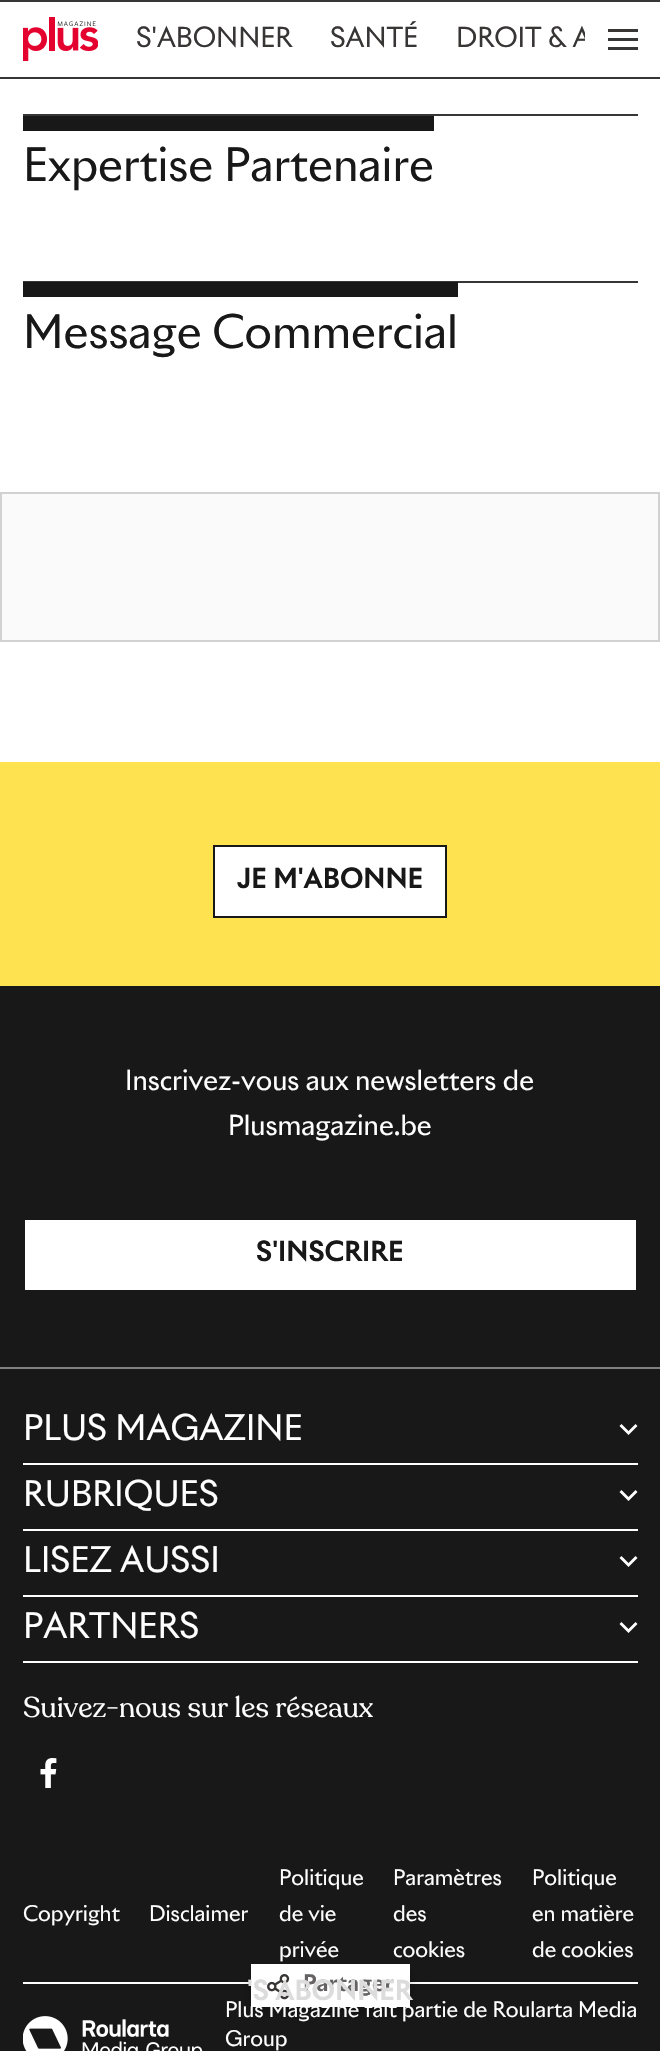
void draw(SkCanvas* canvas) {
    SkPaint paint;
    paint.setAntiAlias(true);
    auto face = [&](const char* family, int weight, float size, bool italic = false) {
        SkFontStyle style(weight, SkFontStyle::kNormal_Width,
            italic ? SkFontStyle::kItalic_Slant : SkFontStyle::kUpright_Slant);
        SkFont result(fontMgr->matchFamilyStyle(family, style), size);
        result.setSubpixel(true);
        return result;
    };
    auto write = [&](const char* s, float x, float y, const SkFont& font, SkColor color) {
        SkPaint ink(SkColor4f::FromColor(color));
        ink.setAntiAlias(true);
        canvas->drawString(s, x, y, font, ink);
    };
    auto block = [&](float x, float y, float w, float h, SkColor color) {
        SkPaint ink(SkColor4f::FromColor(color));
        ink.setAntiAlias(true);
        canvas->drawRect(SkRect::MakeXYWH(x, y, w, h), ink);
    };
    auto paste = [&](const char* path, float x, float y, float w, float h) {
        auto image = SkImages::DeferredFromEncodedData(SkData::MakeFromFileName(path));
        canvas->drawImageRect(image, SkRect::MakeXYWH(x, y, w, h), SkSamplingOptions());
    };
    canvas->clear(SK_ColorWHITE);
    block(0, 0, 660, 2, SkColorSetRGB(56, 53, 53));
    block(0, 77, 660, 2, SkColorSetRGB(56, 53, 53));
    paste("pic1.png", 23, 17, 75, 44);
    auto kFont1 = face("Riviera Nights", 400, 27);
    write("S'ABONNER", 136, 47, kFont1, SkColorSetRGB(56, 53, 53));
    write("SANTÉ", 330, 47, kFont1, SkColorSetRGB(56, 53, 53));
    canvas->save();
    canvas->clipRect(SkRect::MakeXYWH(23, 2, 562, 75));
    write("DROIT & A", 456, 47, kFont1, SkColorSetRGB(56, 53, 53));
    canvas->restore();
    block(608, 29, 30, 3, SkColorSetRGB(56, 53, 53));
    block(608, 38, 30, 3, SkColorSetRGB(56, 53, 53));
    block(608, 47, 30, 3, SkColorSetRGB(56, 53, 53));
    block(0, 986, 660, 1065, SkColorSetRGB(25, 24, 24));
    block(23, 1982, 615, 2, SK_ColorWHITE);
    paint.setColor(SkColorSetARGB(26, 0, 0, 0));
    paint.setMaskFilter(SkMaskFilter::MakeBlur(kNormal_SkBlurStyle, 3));
    canvas->drawRect(SkRect::MakeXYWH(251, 1970, 159, 43), paint);
    paint.setMaskFilter(nullptr);
    paint.setMaskFilter(SkMaskFilter::MakeBlur(kNormal_SkBlurStyle, 7.5f));
    canvas->drawRect(SkRect::MakeXYWH(251, 1970, 159, 43), paint);
    paint.setMaskFilter(nullptr);
    block(251, 1964, 159, 43, SK_ColorWHITE);
    paste("pic2.png", 267, 1974, 23, 26);
    auto kFont2 = face("Riviera Nights", 700, 22.5f);
    write("Partager", 303, 1991, kFont2, SkColorSetRGB(100, 98, 98));
    auto kFont3 = face("Riviera Nights", 700, 27);
    write("'S ABONNER", 247, 2000, kFont3, SkColorSetRGB(221, 220, 220));
    block(23, 114, 615, 2, SkColorSetRGB(56, 53, 53));
    block(23, 116, 411, 15, SkColorSetRGB(25, 24, 24));
    auto kFont4 = face("Riviera Nights", 400, 45);
    write("Expertise Partenaire", 23, 181, kFont4, SkColorSetRGB(25, 24, 24));
    block(23, 281, 615, 2, SkColorSetRGB(56, 53, 53));
    block(23, 282, 435, 15, SkColorSetRGB(25, 24, 24));
    write("Message Commercial", 23, 348, kFont4, SkColorSetRGB(25, 24, 24));
    paint.setColor(SkColorSetRGB(250, 250, 250));
    canvas->drawRect(SkRect::MakeXYWH(1, 493, 658, 148), paint);
    paint.setStyle(SkPaint::kStroke_Style);
    paint.setStrokeWidth(2);
    paint.setColor(SkColorSetRGB(209, 209, 209));
    canvas->drawRect(SkRect::MakeXYWH(1, 493, 658, 148), paint);
    block(0, 762, 660, 224, SkColorSetRGB(255, 226, 79));
    paint.setStyle(SkPaint::kFill_Style);
    paint.setColor(SK_ColorWHITE);
    canvas->drawRect(SkRect::MakeXYWH(214, 846, 232, 71), paint);
    paint.setStyle(SkPaint::kStroke_Style);
    paint.setColor(SkColorSetRGB(25, 24, 24));
    canvas->drawRect(SkRect::MakeXYWH(214, 846, 232, 71), paint);
    write("JE M'ABONNE", 237, 888, kFont3, SkColorSetRGB(25, 24, 24));
    write("Inscrivez-vous aux newsletters de", 125, 1090, kFont1, SK_ColorWHITE);
    write("Plusmagazine.be", 228, 1135, kFont1, SK_ColorWHITE);
    block(25, 1220, 611, 70, SK_ColorWHITE);
    write("S'INSCRIRE", 256, 1261, kFont3, SkColorSetRGB(25, 24, 24));
    block(0, 1367, 660, 2, SkColorSetRGB(128, 128, 128));
    block(23, 1463, 615, 2, SK_ColorWHITE);
    auto kFont5 = face("Riviera Nights", 400, 34.5f);
    write("PLUS MAGAZINE", 23, 1440, kFont5, SK_ColorWHITE);
    paint.setStyle(SkPaint::kFill_Style);
    paint.setColor(SK_ColorWHITE);
    canvas->drawPath(SkPathBuilder().moveTo(637.5f, 1426).lineTo(635.5f, 1424).lineTo(628.5f, 1431).lineTo(621.5f, 1424).lineTo(619.5f, 1426).lineTo(628.5f, 1435).close().detach(), paint);
    block(23, 1529, 615, 2, SK_ColorWHITE);
    write("RUBRIQUES", 23, 1506, kFont5, SK_ColorWHITE);
    canvas->drawPath(SkPathBuilder().moveTo(637.5f, 1492).lineTo(635.5f, 1490).lineTo(628.5f, 1497).lineTo(621.5f, 1490).lineTo(619.5f, 1492).lineTo(628.5f, 1501).close().detach(), paint);
    block(23, 1595, 615, 2, SK_ColorWHITE);
    write("LISEZ AUSSI", 23, 1572, kFont5, SK_ColorWHITE);
    canvas->drawPath(SkPathBuilder().moveTo(637.5f, 1558).lineTo(635.5f, 1556).lineTo(628.5f, 1563).lineTo(621.5f, 1556).lineTo(619.5f, 1558).lineTo(628.5f, 1567).close().detach(), paint);
    block(23, 1661, 615, 2, SK_ColorWHITE);
    write("PARTNERS", 23, 1638, kFont5, SK_ColorWHITE);
    canvas->drawPath(SkPathBuilder().moveTo(637.5f, 1624).lineTo(635.5f, 1622).lineTo(628.5f, 1629).lineTo(621.5f, 1622).lineTo(619.5f, 1624).lineTo(628.5f, 1633).close().detach(), paint);
    auto kFont6 = face("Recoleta", 400, 28.5f);
    write("Suivez-nous sur les réseaux", 23, 1717, kFont6, SK_ColorWHITE);
    paste("pic3.png", 40, 1758, 17, 30);
    auto kFont7 = face("Riviera Nights", 400, 21);
    write("Copyright", 23, 1921, kFont7, SK_ColorWHITE);
    write("Disclaimer", 149, 1921, kFont7, SK_ColorWHITE);
    write("Politique", 279, 1885, kFont7, SK_ColorWHITE);
    write("de vie", 279, 1921, kFont7, SK_ColorWHITE);
    write("privée", 279, 1957, kFont7, SK_ColorWHITE);
    write("Paramètres", 393, 1885, kFont7, SK_ColorWHITE);
    write("des", 393, 1921, kFont7, SK_ColorWHITE);
    write("cookies", 393, 1957, kFont7, SK_ColorWHITE);
    write("Politique", 532, 1885, kFont7, SK_ColorWHITE);
    write("en matière", 532, 1921, kFont7, SK_ColorWHITE);
    write("de cookies", 532, 1957, kFont7, SK_ColorWHITE);
    paste("pic4.png", 23, 2016, 180, 35);
    write("Plus Magazine fait partie de Roularta Media", 225, 2017, kFont7, SK_ColorWHITE);
    write("Group", 225, 2046, kFont7, SK_ColorWHITE);
}
